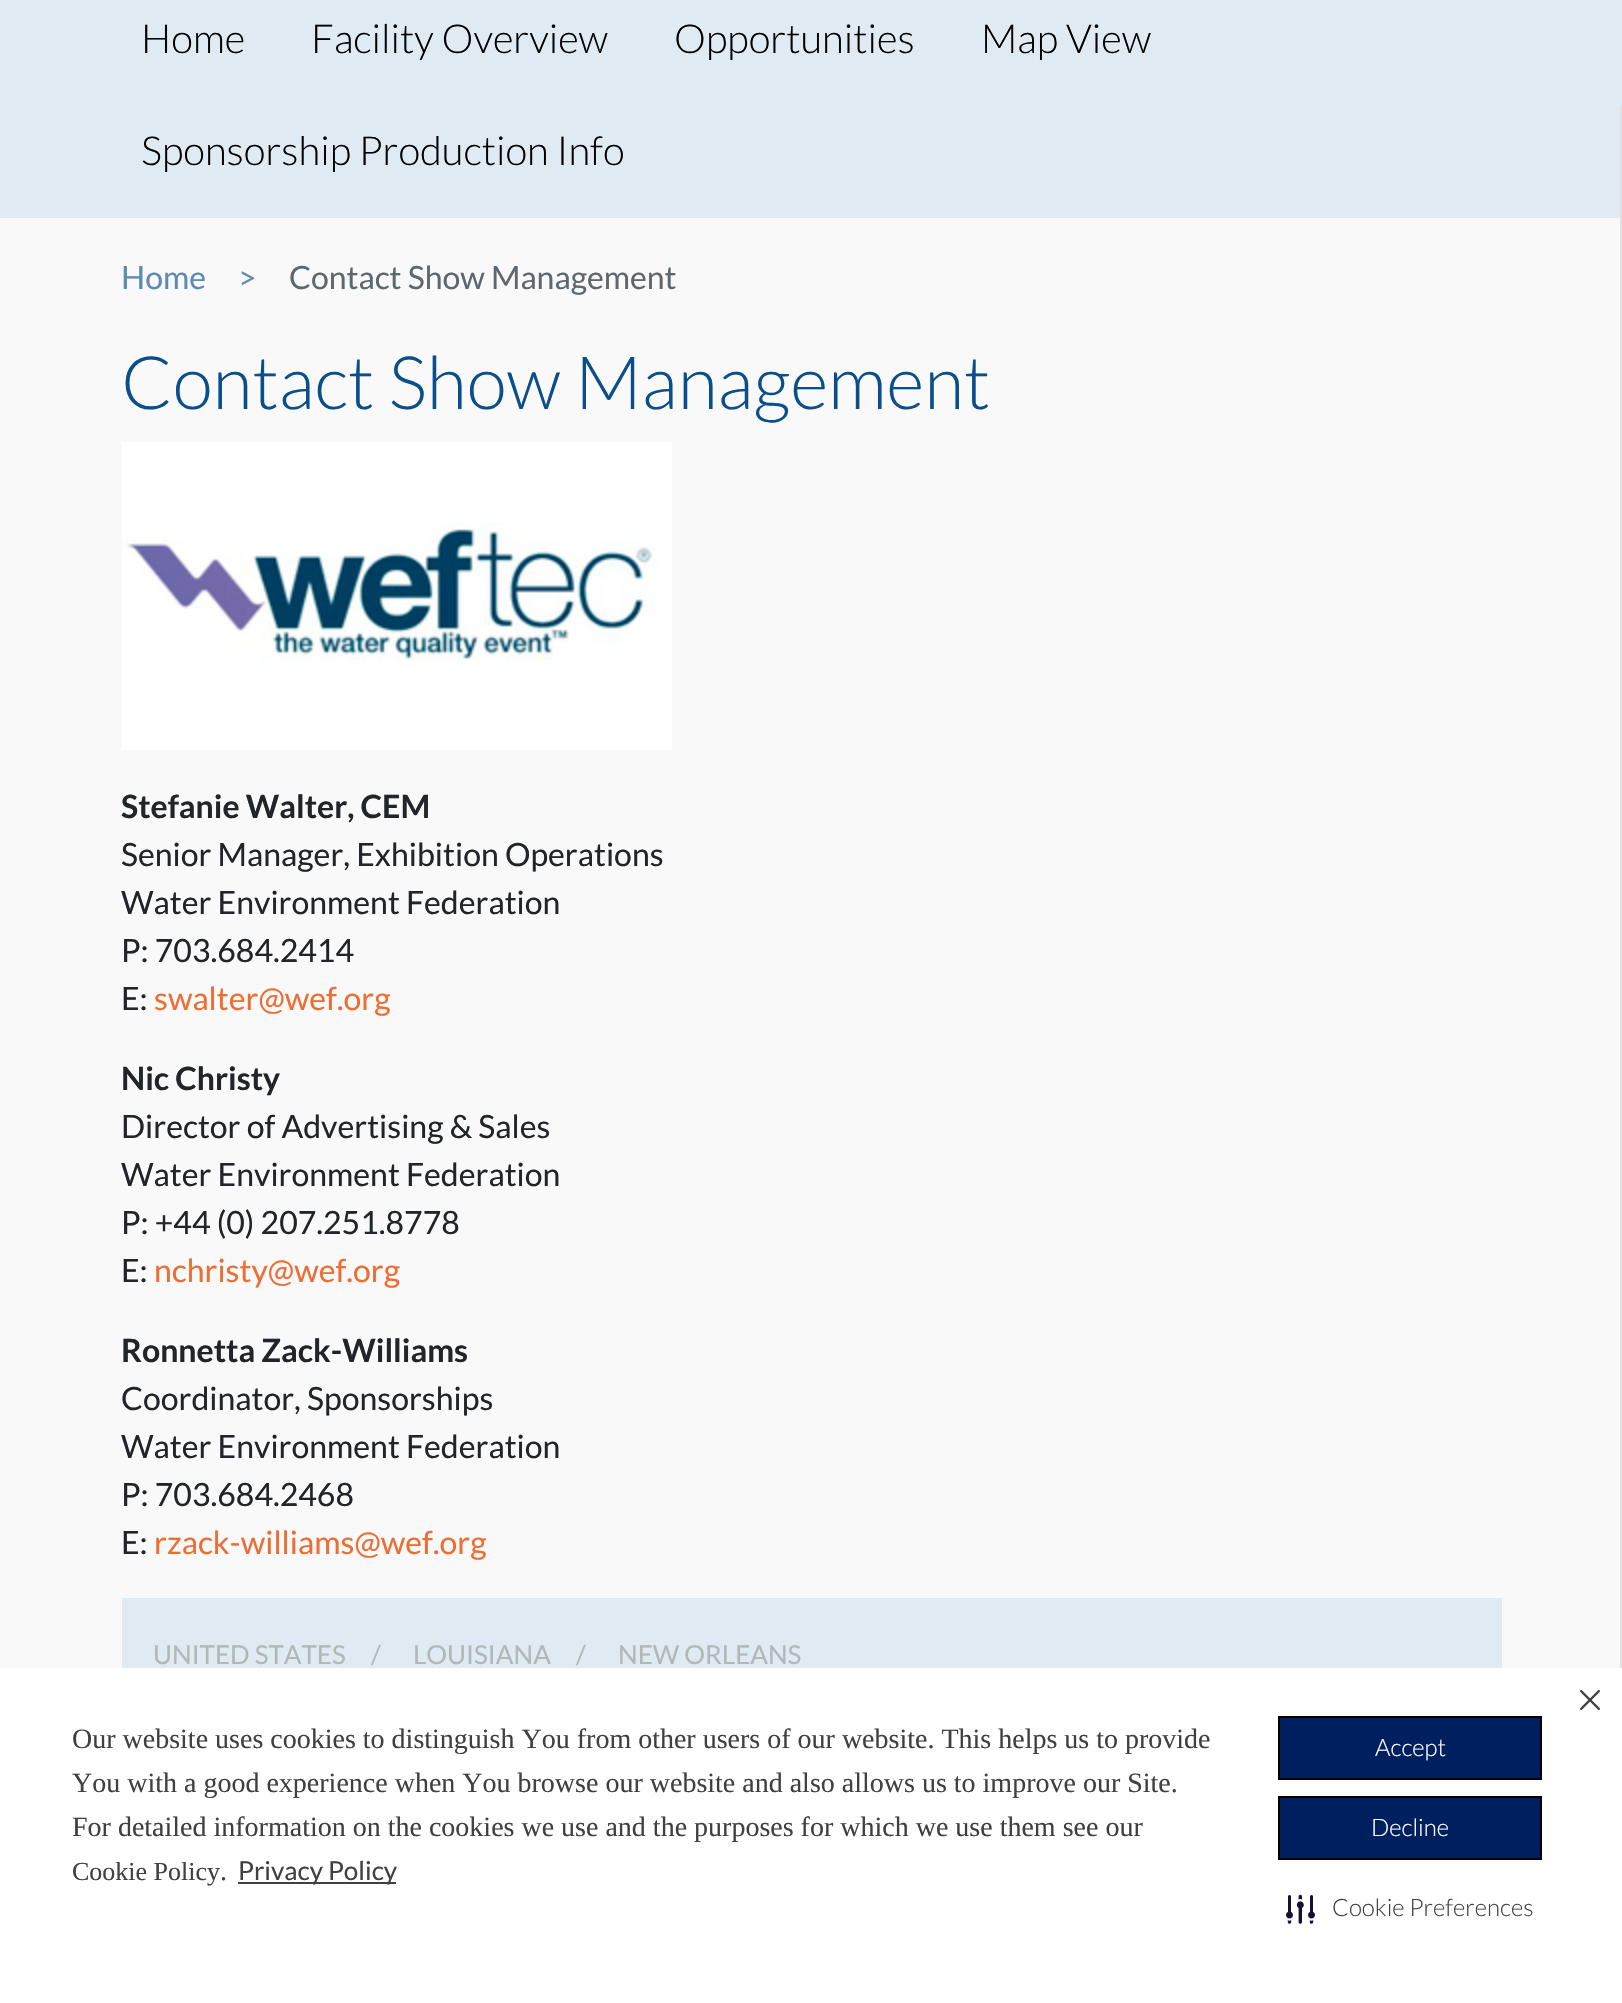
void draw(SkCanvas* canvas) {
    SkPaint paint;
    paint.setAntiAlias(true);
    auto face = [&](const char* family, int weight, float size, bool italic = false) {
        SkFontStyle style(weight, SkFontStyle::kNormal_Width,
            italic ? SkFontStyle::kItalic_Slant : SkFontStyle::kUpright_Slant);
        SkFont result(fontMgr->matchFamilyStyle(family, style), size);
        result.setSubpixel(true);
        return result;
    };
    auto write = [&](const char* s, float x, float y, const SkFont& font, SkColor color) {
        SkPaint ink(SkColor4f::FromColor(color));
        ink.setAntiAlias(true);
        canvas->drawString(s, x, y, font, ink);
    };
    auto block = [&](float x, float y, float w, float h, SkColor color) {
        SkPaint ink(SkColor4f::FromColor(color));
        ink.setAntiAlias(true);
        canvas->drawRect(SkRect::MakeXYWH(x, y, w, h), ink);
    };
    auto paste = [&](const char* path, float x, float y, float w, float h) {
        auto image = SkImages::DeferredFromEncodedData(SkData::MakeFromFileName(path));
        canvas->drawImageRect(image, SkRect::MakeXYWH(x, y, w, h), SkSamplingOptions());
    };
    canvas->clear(SkColorSetRGB(249, 249, 249));
    block(0, 0, 1622, 218, SkColorSetRGB(223, 234, 242));
    auto kFont1 = face("Lato", 300, 40);
    write("Home", 141, 53, kFont1, SK_ColorBLACK);
    write("Facility Overview", 311, 53, kFont1, SK_ColorBLACK);
    write("Opportunities", 674, 53, kFont1, SK_ColorBLACK);
    write("Map View", 981, 53, kFont1, SK_ColorBLACK);
    write("Sponsorship Production Info", 141, 165, kFont1, SK_ColorBLACK);
    block(1620, 106, 2, 1562, SkColorSetRGB(226, 226, 226));
    auto kFont2 = face("Lato", 400, 32);
    write("Home", 121, 289, kFont2, SkColorSetRGB(94, 138, 178));
    write(">", 238, 289, kFont2, SkColorSetRGB(94, 138, 178));
    write("Contact Show Management", 289, 289, kFont2, SkColorSetRGB(93, 103, 112));
    auto kFont3 = face("Lato", 300, 73.6f);
    write("Contact Show Management", 121, 409, kFont3, SkColorSetRGB(10, 78, 139));
    paste("pic1.png", 122, 442, 550, 308);
    auto kFont4 = face("Lato", 700, 32);
    write("Stefanie Walter, CEM", 121, 818, kFont4, SkColorSetRGB(33, 37, 41));
    write("Senior Manager, Exhibition Operations", 121, 866, kFont2, SkColorSetRGB(33, 37, 41));
    write("Water Environment Federation", 121, 914, kFont2, SkColorSetRGB(33, 37, 41));
    write("P: 703.684.2414", 121, 962, kFont2, SkColorSetRGB(33, 37, 41));
    write("E:", 121, 1010, kFont2, SkColorSetRGB(33, 37, 41));
    write("swalter@wef.org", 154, 1010, kFont2, SkColorSetRGB(238, 109, 51));
    write("Nic Christy", 121, 1090, kFont4, SkColorSetRGB(33, 37, 41));
    write("Director of Advertising & Sales", 121, 1138, kFont2, SkColorSetRGB(33, 37, 41));
    write("Water Environment Federation", 121, 1186, kFont2, SkColorSetRGB(33, 37, 41));
    write("P: +44 (0) 207.251.8778", 121, 1234, kFont2, SkColorSetRGB(33, 37, 41));
    write("E:", 121, 1282, kFont2, SkColorSetRGB(33, 37, 41));
    write("nchristy@wef.org", 154, 1282, kFont2, SkColorSetRGB(238, 109, 51));
    write("Ronnetta Zack-Williams", 121, 1362, kFont4, SkColorSetRGB(33, 37, 41));
    write("Coordinator, Sponsorships", 121, 1410, kFont2, SkColorSetRGB(33, 37, 41));
    write("Water Environment Federation", 121, 1458, kFont2, SkColorSetRGB(33, 37, 41));
    write("P: 703.684.2468", 121, 1506, kFont2, SkColorSetRGB(33, 37, 41));
    write("E:", 121, 1554, kFont2, SkColorSetRGB(33, 37, 41));
    write("rzack-williams@wef.org", 154, 1554, kFont2, SkColorSetRGB(238, 109, 51));
    block(122, 1598, 1380, 70, SkColorSetRGB(223, 234, 242));
    auto kFont5 = face("Lato", 400, 26);
    write("UNITED STATES", 153, 1664, kFont5, SkColorSetRGB(178, 183, 184));
    write("/", 371, 1664, kFont5, SkColorSetRGB(178, 183, 184));
    write("LOUISIANA", 413, 1664, kFont5, SkColorSetRGB(178, 183, 184));
    write("/", 576, 1664, kFont5, SkColorSetRGB(178, 183, 184));
    write("NEW ORLEANS", 618, 1664, kFont5, SkColorSetRGB(178, 183, 184));
    block(0, 1668, 1622, 335, SK_ColorWHITE);
    auto kFont6 = face("Liberation Serif", 400, 28);
    write("Our website uses cookies to distinguish You from other users of our website. This helps us to provide", 72, 1748, kFont6, SkColorSetRGB(64, 64, 64));
    write("You with a good experience when You browse our website and also allows us to improve our Site.", 72, 1792, kFont6, SkColorSetRGB(64, 64, 64));
    write("For detailed information on the cookies we use and the purposes for which we use them see our", 72, 1836, kFont6, SkColorSetRGB(64, 64, 64));
    auto kFont7 = face("Liberation Serif", 400, 26);
    write("Cookie Policy", 72, 1880, kFont7, SkColorSetRGB(64, 64, 64));
    write(".", 220, 1880, kFont6, SkColorSetRGB(64, 64, 64));
    block(238, 1882, 158, 2, SkColorSetRGB(64, 64, 64));
    write("Privacy Policy", 238, 1880, kFont5, SkColorSetRGB(64, 64, 64));
    paste("pic2.png", 1580, 1690, 20, 20);
    paint.setColor(SkColorSetRGB(0, 31, 95));
    canvas->drawRect(SkRect::MakeXYWH(1279, 1717, 262, 62), paint);
    paint.setStyle(SkPaint::kStroke_Style);
    paint.setStrokeWidth(2);
    paint.setColor(SK_ColorBLACK);
    canvas->drawRect(SkRect::MakeXYWH(1279, 1717, 262, 62), paint);
    auto kFont8 = face("Lato", 300, 24);
    write("Accept", 1375, 1756, kFont8, SK_ColorWHITE);
    paint.setStyle(SkPaint::kFill_Style);
    paint.setColor(SkColorSetRGB(0, 31, 95));
    canvas->drawRect(SkRect::MakeXYWH(1279, 1797, 262, 62), paint);
    paint.setStyle(SkPaint::kStroke_Style);
    paint.setColor(SK_ColorBLACK);
    canvas->drawRect(SkRect::MakeXYWH(1279, 1797, 262, 62), paint);
    write("Decline", 1371, 1836, kFont8, SK_ColorWHITE);
    paste("pic3.png", 1286, 1894, 29, 30);
    write("Cookie Preferences", 1332, 1916, kFont8, SkColorSetRGB(64, 64, 64));
}
